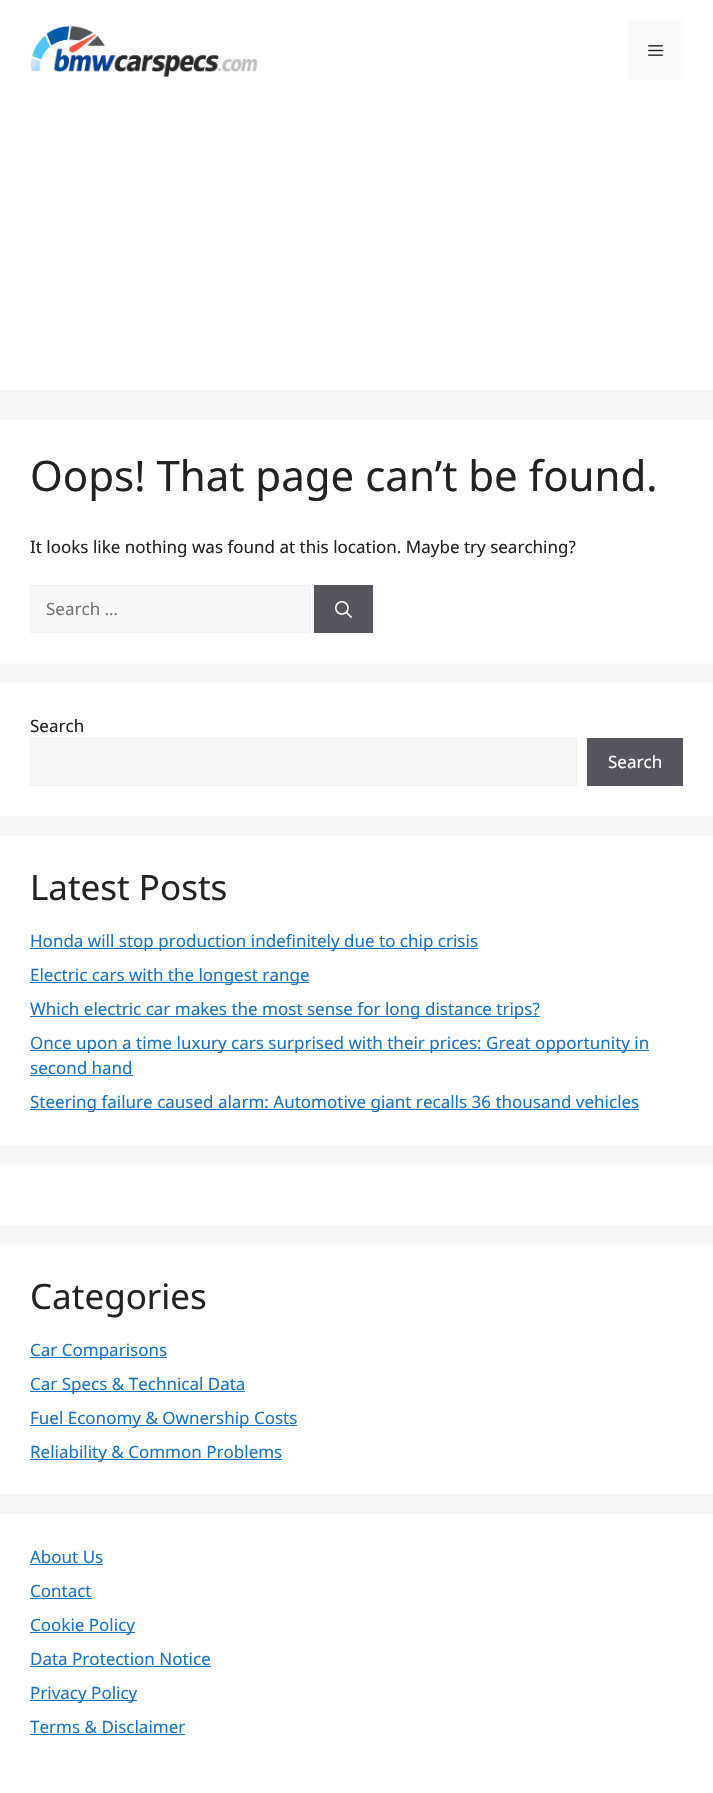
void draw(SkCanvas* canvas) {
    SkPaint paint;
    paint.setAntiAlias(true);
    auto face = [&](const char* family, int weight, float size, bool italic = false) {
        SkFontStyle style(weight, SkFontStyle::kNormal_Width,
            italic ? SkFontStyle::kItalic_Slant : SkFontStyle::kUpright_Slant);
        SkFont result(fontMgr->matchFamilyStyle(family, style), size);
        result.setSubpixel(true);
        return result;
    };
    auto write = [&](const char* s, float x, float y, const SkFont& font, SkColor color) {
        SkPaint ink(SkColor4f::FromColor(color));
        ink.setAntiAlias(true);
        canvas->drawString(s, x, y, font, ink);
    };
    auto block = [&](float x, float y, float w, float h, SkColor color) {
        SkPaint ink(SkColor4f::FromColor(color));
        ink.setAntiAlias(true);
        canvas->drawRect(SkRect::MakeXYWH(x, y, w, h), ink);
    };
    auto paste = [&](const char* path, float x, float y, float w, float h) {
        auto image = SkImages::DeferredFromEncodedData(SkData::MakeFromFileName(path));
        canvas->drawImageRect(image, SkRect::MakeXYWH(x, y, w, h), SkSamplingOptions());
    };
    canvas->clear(SkColorSetRGB(247, 248, 249));
    block(0, 0, 713, 390, SK_ColorWHITE);
    paste("pic1.png", 31, 25, 227, 52);
    block(628, 20, 55, 60, SkColorSetRGB(250, 250, 250));
    paste("pic2.png", 648, 45, 15, 11);
    block(0, 420, 713, 243, SK_ColorWHITE);
    auto kFont1 = face("Noto Sans", 400, 42);
    write("Oops! That page can’t be found.", 30, 491, kFont1, SkColorSetRGB(34, 34, 34));
    auto kFont2 = face("Noto Sans", 400, 17);
    write("It looks like nothing was found at this location. Maybe try searching?", 30, 553, kFont2, SkColorSetRGB(34, 34, 34));
    paint.setColor(SkColorSetRGB(247, 248, 249));
    canvas->drawRect(SkRect::MakeXYWH(30.5f, 585.5f, 279, 47), paint);
    paint.setStyle(SkPaint::kStroke_Style);
    paint.setStrokeWidth(1);
    paint.setColor(SkColorSetRGB(240, 240, 240));
    canvas->drawRect(SkRect::MakeXYWH(30.5f, 585.5f, 279, 47), paint);
    write("Search …", 46, 615, kFont2, SkColorSetRGB(117, 117, 117));
    block(314, 585, 59, 48, SkColorSetRGB(85, 85, 94));
    paste("pic3.png", 335, 601, 17, 17);
    block(0, 683, 713, 133, SK_ColorWHITE);
    write("Search", 30, 732, kFont2, SkColorSetRGB(34, 34, 34));
    paint.setStyle(SkPaint::kFill_Style);
    paint.setColor(SkColorSetRGB(247, 248, 249));
    canvas->drawRect(SkRect::MakeXYWH(30.5f, 738.5f, 546, 47), paint);
    paint.setStyle(SkPaint::kStroke_Style);
    paint.setColor(SkColorSetRGB(240, 240, 240));
    canvas->drawRect(SkRect::MakeXYWH(30.5f, 738.5f, 546, 47), paint);
    block(587, 738, 96, 48, SkColorSetRGB(85, 85, 94));
    write("Search", 608, 768, kFont2, SK_ColorWHITE);
    block(0, 836, 713, 309, SK_ColorWHITE);
    auto kFont3 = face("Noto Sans", 400, 35);
    write("Latest Posts", 30, 900, kFont3, SkColorSetRGB(34, 34, 34));
    block(30, 948, 448, 1, SkColorSetRGB(30, 115, 190));
    write("Honda will stop production indefinitely due to chip crisis", 30, 947, kFont2, SkColorSetRGB(30, 115, 190));
    block(30, 982, 279, 1, SkColorSetRGB(30, 115, 190));
    write("Electric cars with the longest range", 30, 981, kFont2, SkColorSetRGB(30, 115, 190));
    block(30, 1016, 510, 1, SkColorSetRGB(30, 115, 190));
    write("Which electric car makes the most sense for long distance trips?", 30, 1015, kFont2, SkColorSetRGB(30, 115, 190));
    block(30, 1050, 619, 1, SkColorSetRGB(30, 115, 190));
    write("Once upon a time luxury cars surprised with their prices: Great opportunity in", 30, 1049, kFont2, SkColorSetRGB(30, 115, 190));
    write("second hand", 30, 1074, kFont2, SkColorSetRGB(30, 115, 190));
    block(30, 1075, 103, 1, SkColorSetRGB(30, 115, 190));
    block(30, 1109, 609, 1, SkColorSetRGB(30, 115, 190));
    write("Steering failure caused alarm: Automotive giant recalls 36 thousand vehicles", 30, 1108, kFont2, SkColorSetRGB(30, 115, 190));
    block(0, 1165, 713, 60, SK_ColorWHITE);
    block(0, 1245, 713, 249, SK_ColorWHITE);
    write("Categories", 30, 1309, kFont3, SkColorSetRGB(34, 34, 34));
    block(30, 1357, 137, 1, SkColorSetRGB(30, 115, 190));
    write("Car Comparisons", 30, 1356, kFont2, SkColorSetRGB(30, 115, 190));
    block(30, 1391, 215, 1, SkColorSetRGB(30, 115, 190));
    write("Car Specs & Technical Data", 30, 1390, kFont2, SkColorSetRGB(30, 115, 190));
    block(30, 1425, 267, 1, SkColorSetRGB(30, 115, 190));
    write("Fuel Economy & Ownership Costs", 30, 1424, kFont2, SkColorSetRGB(30, 115, 190));
    block(30, 1459, 252, 1, SkColorSetRGB(30, 115, 190));
    write("Reliability & Common Problems", 30, 1458, kFont2, SkColorSetRGB(30, 115, 190));
    block(0, 1514, 713, 279, SK_ColorWHITE);
    write("About Us", 30, 1563, kFont2, SkColorSetRGB(30, 115, 190));
    block(30, 1564, 73, 1, SkColorSetRGB(30, 115, 190));
    write("Contact", 30, 1597, kFont2, SkColorSetRGB(30, 115, 190));
    block(30, 1598, 62, 1, SkColorSetRGB(30, 115, 190));
    block(30, 1632, 105, 1, SkColorSetRGB(30, 115, 190));
    write("Cookie Policy", 30, 1631, kFont2, SkColorSetRGB(30, 115, 190));
    write("Data Protection Notice", 30, 1665, kFont2, SkColorSetRGB(30, 115, 190));
    block(30, 1666, 181, 1, SkColorSetRGB(30, 115, 190));
    block(30, 1700, 107, 1, SkColorSetRGB(30, 115, 190));
    write("Privacy Policy", 30, 1699, kFont2, SkColorSetRGB(30, 115, 190));
    write("Terms & Disclaimer", 30, 1733, kFont2, SkColorSetRGB(30, 115, 190));
    block(30, 1734, 155, 1, SkColorSetRGB(30, 115, 190));
}
